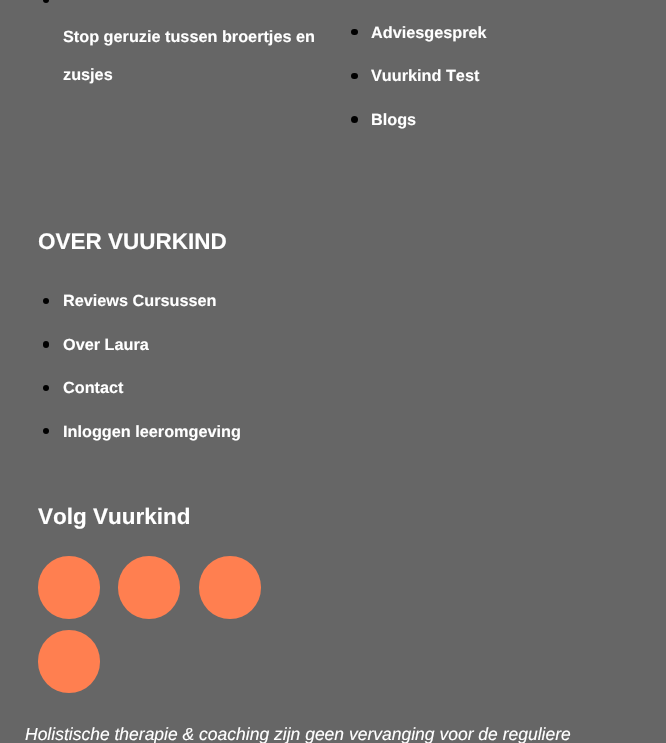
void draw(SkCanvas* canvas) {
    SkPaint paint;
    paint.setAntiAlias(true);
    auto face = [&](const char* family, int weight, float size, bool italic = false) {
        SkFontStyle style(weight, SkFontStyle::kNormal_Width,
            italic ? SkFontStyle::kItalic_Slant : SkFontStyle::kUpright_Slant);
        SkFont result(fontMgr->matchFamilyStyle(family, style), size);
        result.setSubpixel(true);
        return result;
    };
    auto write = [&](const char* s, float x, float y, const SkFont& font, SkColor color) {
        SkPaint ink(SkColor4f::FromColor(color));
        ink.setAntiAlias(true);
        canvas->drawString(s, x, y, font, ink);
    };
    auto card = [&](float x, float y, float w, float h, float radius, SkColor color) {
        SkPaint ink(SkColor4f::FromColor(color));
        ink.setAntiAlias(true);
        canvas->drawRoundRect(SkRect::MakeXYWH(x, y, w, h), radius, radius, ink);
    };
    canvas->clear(SkColorSetRGB(102, 102, 102));
    paint.setColor(SK_ColorBLACK);
    canvas->drawCircle(46, 0, 3, paint);
    auto kFont1 = face("Liberation Sans", 700, 16.25f);
    write("Stop geruzie tussen broertjes en", 63, 42, kFont1, SK_ColorWHITE);
    write("zusjes", 63, 80, kFont1, SK_ColorWHITE);
    card(351, 29, 7, 6, 3, SK_ColorBLACK);
    write("Adviesgesprek", 371, 38, kFont1, SK_ColorWHITE);
    card(351, 73, 7, 6, 3, SK_ColorBLACK);
    write("Vuurkind Test", 371, 81, kFont1, SK_ColorWHITE);
    canvas->drawCircle(354.5f, 119.5f, 3.5f, paint);
    write("Blogs", 371, 125, kFont1, SK_ColorWHITE);
    auto kFont2 = face("Liberation Sans", 700, 22.5f);
    write("OVER VUURKIND", 38, 249, kFont2, SK_ColorWHITE);
    canvas->drawCircle(46, 301, 3, paint);
    write("Reviews Cursussen", 63, 306, kFont1, SK_ColorWHITE);
    card(43, 341, 6, 7, 3, SK_ColorBLACK);
    write("Over Laura", 63, 350, kFont1, SK_ColorWHITE);
    canvas->drawCircle(46, 388, 3, paint);
    write("Contact", 63, 393, kFont1, SK_ColorWHITE);
    canvas->drawCircle(46, 431, 3, paint);
    write("Inloggen leeromgeving", 63, 437, kFont1, SK_ColorWHITE);
    write("Volg Vuurkind", 38, 524, kFont2, SK_ColorWHITE);
    card(38, 556, 62, 63, 31, SkColorSetRGB(255, 127, 80));
    card(118, 556, 62, 63, 31, SkColorSetRGB(255, 127, 80));
    card(199, 556, 62, 63, 31, SkColorSetRGB(255, 127, 80));
    card(38, 630, 62, 63, 31, SkColorSetRGB(255, 127, 80));
    auto kFont3 = face("Liberation Sans", 400, 17.5f, true);
    write("Holistische therapie & coaching zijn geen vervanging voor de reguliere", 25, 740, kFont3, SK_ColorWHITE);
}
